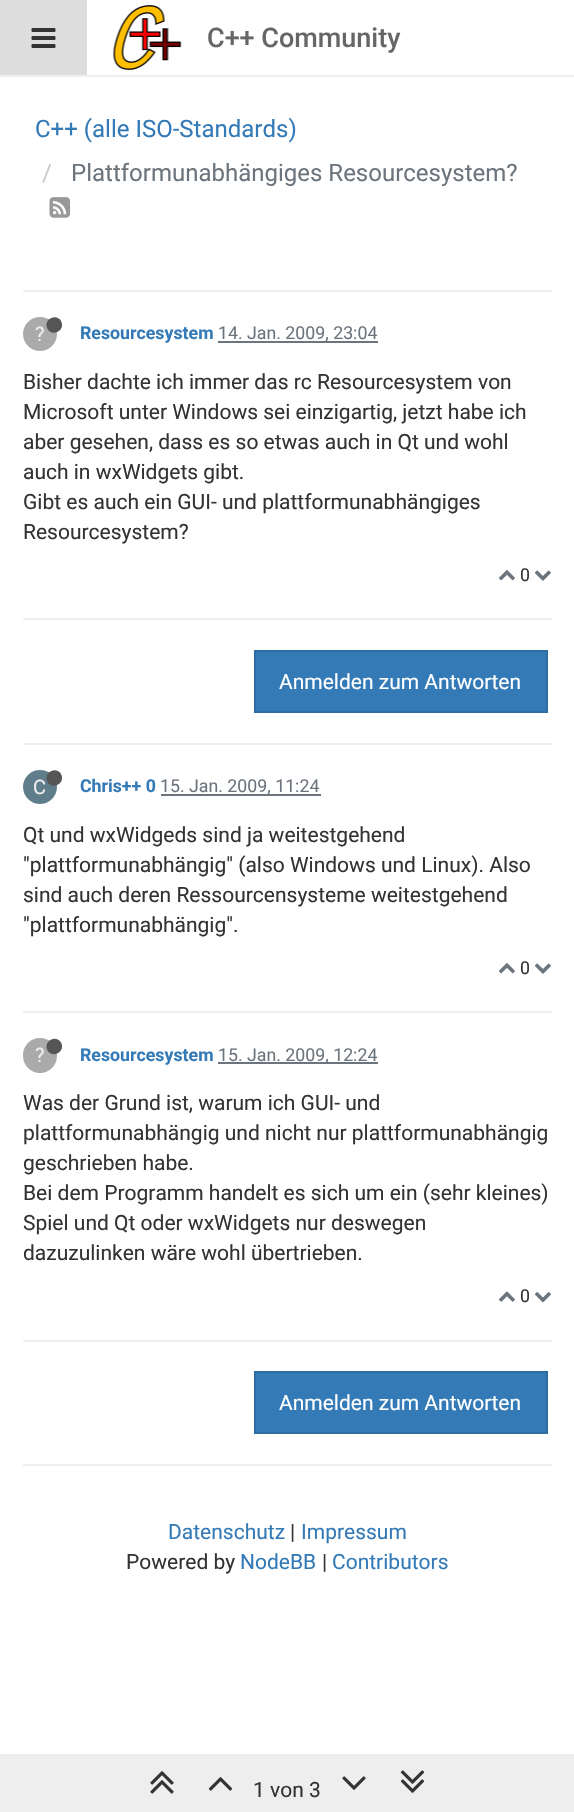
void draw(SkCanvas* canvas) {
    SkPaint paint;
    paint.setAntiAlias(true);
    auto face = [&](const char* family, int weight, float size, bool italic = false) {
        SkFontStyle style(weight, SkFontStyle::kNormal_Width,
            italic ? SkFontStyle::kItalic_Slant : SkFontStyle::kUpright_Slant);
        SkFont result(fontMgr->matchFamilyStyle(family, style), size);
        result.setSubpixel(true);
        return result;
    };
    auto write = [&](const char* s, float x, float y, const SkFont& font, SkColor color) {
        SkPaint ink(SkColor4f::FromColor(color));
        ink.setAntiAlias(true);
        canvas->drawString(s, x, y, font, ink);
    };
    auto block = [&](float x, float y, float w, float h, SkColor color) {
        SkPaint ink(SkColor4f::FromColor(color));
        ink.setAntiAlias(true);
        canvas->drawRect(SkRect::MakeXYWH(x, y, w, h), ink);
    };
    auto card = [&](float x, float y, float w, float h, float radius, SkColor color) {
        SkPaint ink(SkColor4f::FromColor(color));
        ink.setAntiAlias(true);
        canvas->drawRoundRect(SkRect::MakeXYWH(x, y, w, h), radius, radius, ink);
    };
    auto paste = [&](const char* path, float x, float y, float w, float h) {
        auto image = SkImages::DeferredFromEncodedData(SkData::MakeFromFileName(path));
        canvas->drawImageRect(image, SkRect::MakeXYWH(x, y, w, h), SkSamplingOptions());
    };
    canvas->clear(SK_ColorWHITE);
    block(0, 75, 574, 2, SkColorSetRGB(238, 238, 238));
    block(0, 0, 87, 75, SkColorSetRGB(221, 221, 221));
    paste("pic1.png", 31, 28, 25, 20);
    paste("pic2.png", 113, 5, 69, 65);
    auto kFont1 = face("Roboto", 500, 27);
    write("C++ Community", 207, 47, kFont1, SkColorSetRGB(102, 102, 102));
    auto kFont2 = face("Roboto", 400, 24);
    write("C++ (alle ISO-Standards)", 35, 137, kFont2, SkColorSetRGB(51, 122, 183));
    write("/", 42, 181, kFont2, SkColorSetRGB(204, 204, 204));
    write("Plattformunabhängiges Resourcesystem?", 71, 181, kFont2, SkColorSetRGB(108, 117, 125));
    paste("pic3.png", 49, 197, 22, 21);
    block(23, 290, 529, 2, SkColorSetRGB(238, 238, 238));
    paint.setColor(SkColorSetRGB(170, 170, 170));
    canvas->drawCircle(40, 334, 17, paint);
    auto kFont3 = face("Roboto", 400, 20);
    write("?", 35, 341, kFont3, SkColorSetRGB(238, 238, 238));
    paint.setColor(SkColorSetRGB(85, 85, 85));
    canvas->drawPath(SkPathBuilder().moveTo(61, 321).cubicTo(66, 330, 52.5f, 337.5f, 47.5f, 329).cubicTo(42.5f, 320, 56, 312.5f, 61, 321).close().detach(), paint);
    auto kFont4 = face("Roboto", 700, 17.75f);
    write("Resourcesystem", 80, 339, kFont4, SkColorSetRGB(51, 122, 183));
    block(218, 341, 160, 2, SkColorSetRGB(108, 117, 125));
    auto kFont5 = face("Roboto", 400, 17.75f);
    write("14. Jan. 2009, 23:04", 218, 339, kFont5, SkColorSetRGB(108, 117, 125));
    auto kFont6 = face("Roboto", 400, 21);
    write("Bisher dachte ich immer das rc Resourcesystem von", 23, 389, kFont6, SkColorSetRGB(51, 51, 51));
    write("Microsoft unter Windows sei einzigartig, jetzt habe ich", 23, 419, kFont6, SkColorSetRGB(51, 51, 51));
    write("aber gesehen, dass es so etwas auch in Qt und wohl", 23, 449, kFont6, SkColorSetRGB(51, 51, 51));
    write("auch in wxWidgets gibt.", 23, 479, kFont6, SkColorSetRGB(51, 51, 51));
    write("Gibt es auch ein GUI- und plattformunabhängiges", 23, 509, kFont6, SkColorSetRGB(51, 51, 51));
    write("Resourcesystem?", 23, 539, kFont6, SkColorSetRGB(51, 51, 51));
    paste("pic4.png", 499, 570, 16, 11);
    write("0", 520, 581, kFont5, SkColorSetRGB(51, 51, 51));
    paste("pic5.png", 535, 570, 16, 11);
    block(23, 618, 529, 2, SkColorSetRGB(238, 238, 238));
    paint.setColor(SkColorSetRGB(51, 122, 183));
    canvas->drawRect(SkRect::MakeXYWH(255, 651, 292, 61), paint);
    paint.setStyle(SkPaint::kStroke_Style);
    paint.setStrokeWidth(2);
    paint.setColor(SkColorSetRGB(46, 109, 164));
    canvas->drawRect(SkRect::MakeXYWH(255, 651, 292, 61), paint);
    write("Anmelden zum Antworten", 279, 689, kFont6, SK_ColorWHITE);
    block(23, 743, 529, 2, SkColorSetRGB(238, 238, 238));
    paint.setStyle(SkPaint::kFill_Style);
    paint.setColor(SkColorSetRGB(96, 125, 139));
    canvas->drawCircle(40, 787, 17, paint);
    write("C", 33, 794, kFont3, SkColorSetRGB(238, 238, 238));
    paint.setColor(SkColorSetRGB(85, 85, 85));
    canvas->drawPath(SkPathBuilder().moveTo(61, 774).cubicTo(66, 783, 52.5f, 790.5f, 47.5f, 782).cubicTo(42.5f, 773, 56, 765.5f, 61, 774).close().detach(), paint);
    write("Chris++ 0", 80, 792, kFont4, SkColorSetRGB(51, 122, 183));
    block(161, 794, 160, 2, SkColorSetRGB(108, 117, 125));
    write("15. Jan. 2009, 11:24", 160, 792, kFont5, SkColorSetRGB(108, 117, 125));
    write("Qt und wxWidgeds sind ja weitestgehend", 23, 842, kFont6, SkColorSetRGB(51, 51, 51));
    write("\"plattformunabhängig\" (also Windows und Linux). Also", 23, 872, kFont6, SkColorSetRGB(51, 51, 51));
    write("sind auch deren Ressourcensysteme weitestgehend", 23, 902, kFont6, SkColorSetRGB(51, 51, 51));
    write("\"plattformunabhängig\".", 23, 932, kFont6, SkColorSetRGB(51, 51, 51));
    paste("pic4.png", 499, 963, 16, 11);
    write("0", 520, 974, kFont5, SkColorSetRGB(51, 51, 51));
    paste("pic5.png", 535, 963, 16, 11);
    block(23, 1011, 529, 2, SkColorSetRGB(238, 238, 238));
    card(23, 1038, 34, 35, 17, SkColorSetRGB(170, 170, 170));
    write("?", 35, 1062, kFont3, SkColorSetRGB(238, 238, 238));
    canvas->drawPath(SkPathBuilder().moveTo(61, 1042.5f).cubicTo(66, 1051.5f, 52.5f, 1059, 47.5f, 1050.5f).cubicTo(42.5f, 1041.5f, 56, 1034, 61, 1042.5f).close().detach(), paint);
    write("Resourcesystem", 80, 1061, kFont4, SkColorSetRGB(51, 122, 183));
    block(218, 1062, 160, 2, SkColorSetRGB(108, 117, 125));
    write("15. Jan. 2009, 12:24", 218, 1061, kFont5, SkColorSetRGB(108, 117, 125));
    write("Was der Grund ist, warum ich GUI- und", 23, 1110, kFont6, SkColorSetRGB(51, 51, 51));
    write("plattformunabhängig und nicht nur plattformunabhängig", 23, 1140, kFont6, SkColorSetRGB(51, 51, 51));
    write("geschrieben habe.", 23, 1170, kFont6, SkColorSetRGB(51, 51, 51));
    write("Bei dem Programm handelt es sich um ein (sehr kleines)", 23, 1200, kFont6, SkColorSetRGB(51, 51, 51));
    write("Spiel und Qt oder wxWidgets nur deswegen", 23, 1230, kFont6, SkColorSetRGB(51, 51, 51));
    write("dazuzulinken wäre wohl übertrieben.", 23, 1260, kFont6, SkColorSetRGB(51, 51, 51));
    paste("pic6.png", 499, 1291, 16, 11);
    write("0", 520, 1302, kFont5, SkColorSetRGB(51, 51, 51));
    paste("pic7.png", 535, 1292, 16, 11);
    block(23, 1340, 529, 2, SkColorSetRGB(238, 238, 238));
    paint.setColor(SkColorSetRGB(51, 122, 183));
    canvas->drawRect(SkRect::MakeXYWH(255, 1372, 292, 61), paint);
    paint.setStyle(SkPaint::kStroke_Style);
    paint.setColor(SkColorSetRGB(46, 109, 164));
    canvas->drawRect(SkRect::MakeXYWH(255, 1372, 292, 61), paint);
    write("Anmelden zum Antworten", 279, 1410, kFont6, SK_ColorWHITE);
    block(23, 1464, 529, 2, SkColorSetRGB(238, 238, 238));
    block(0, 1754, 574, 58, SkColorSetRGB(238, 238, 238));
    paste("pic8.png", 150, 1771, 24, 23);
    paste("pic9.png", 208, 1777, 25, 14);
    write("1 von 3", 253, 1797, kFont6, SkColorSetRGB(51, 51, 51));
    paste("pic10.png", 342, 1776, 24, 14);
    paste("pic11.png", 400, 1770, 25, 23);
    write("Datenschutz", 168, 1539, kFont6, SkColorSetRGB(51, 122, 183));
    write("|", 290, 1539, kFont6, SkColorSetRGB(51, 51, 51));
    write("Impressum", 301, 1539, kFont6, SkColorSetRGB(51, 122, 183));
    write("Powered by", 126, 1569, kFont6, SkColorSetRGB(51, 51, 51));
    write("NodeBB", 240, 1569, kFont6, SkColorSetRGB(51, 122, 183));
    write("|", 322, 1569, kFont6, SkColorSetRGB(51, 51, 51));
    write("Contributors", 332, 1569, kFont6, SkColorSetRGB(51, 122, 183));
}
